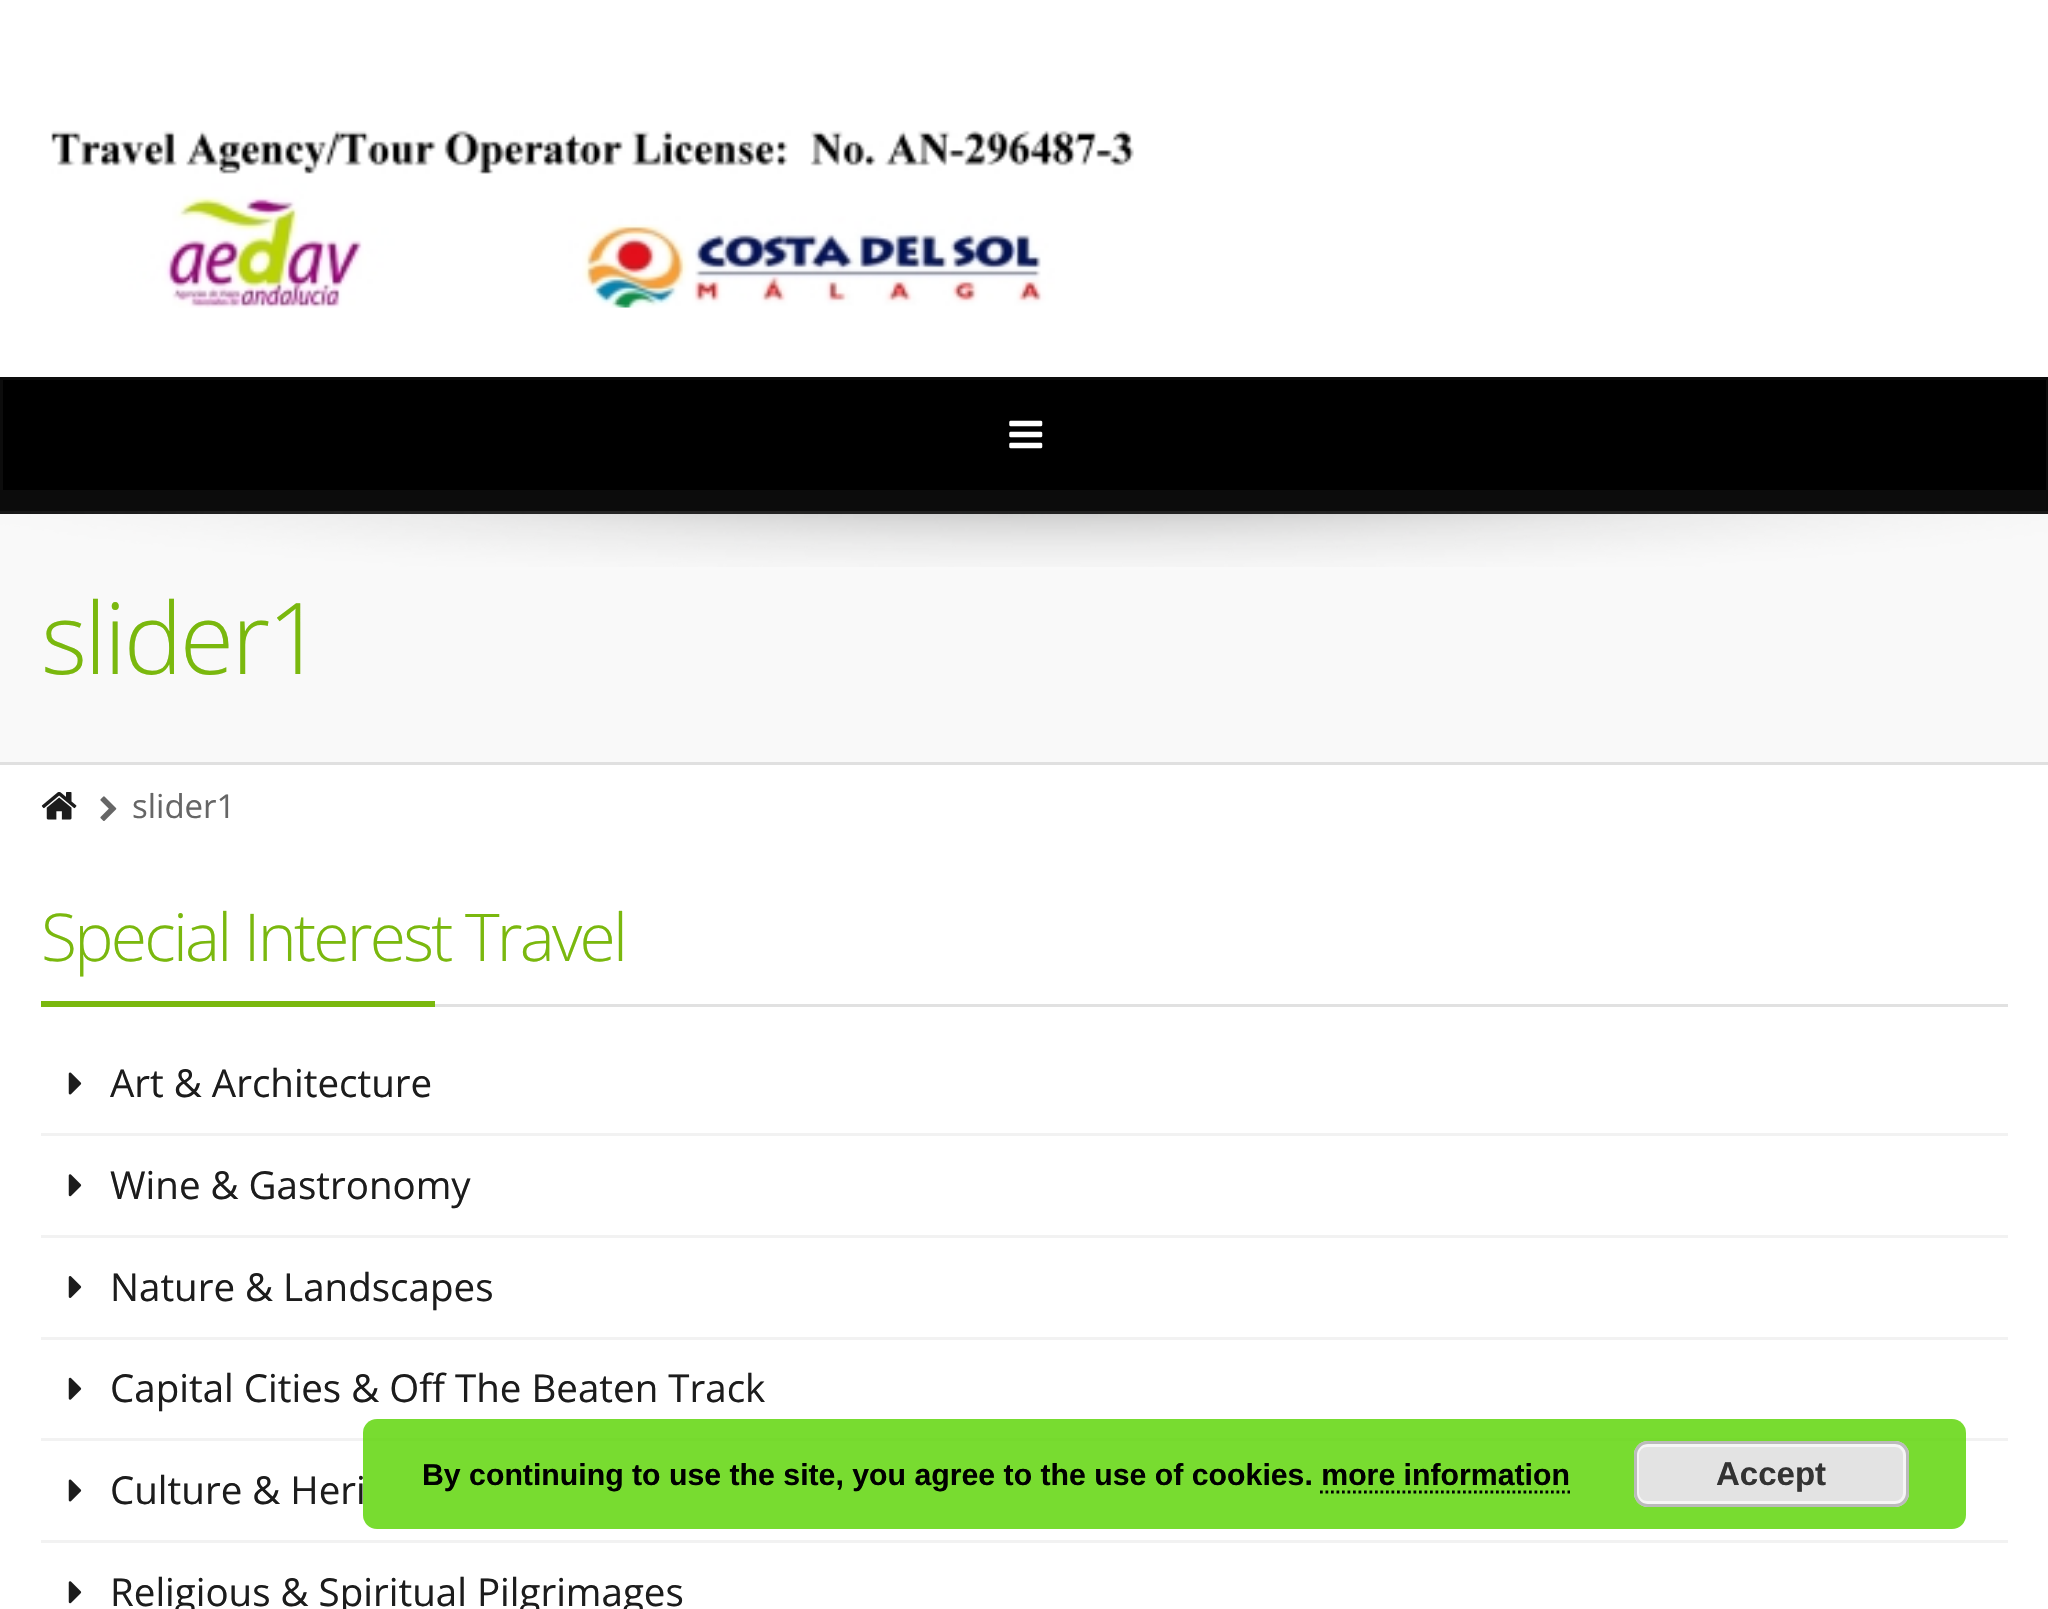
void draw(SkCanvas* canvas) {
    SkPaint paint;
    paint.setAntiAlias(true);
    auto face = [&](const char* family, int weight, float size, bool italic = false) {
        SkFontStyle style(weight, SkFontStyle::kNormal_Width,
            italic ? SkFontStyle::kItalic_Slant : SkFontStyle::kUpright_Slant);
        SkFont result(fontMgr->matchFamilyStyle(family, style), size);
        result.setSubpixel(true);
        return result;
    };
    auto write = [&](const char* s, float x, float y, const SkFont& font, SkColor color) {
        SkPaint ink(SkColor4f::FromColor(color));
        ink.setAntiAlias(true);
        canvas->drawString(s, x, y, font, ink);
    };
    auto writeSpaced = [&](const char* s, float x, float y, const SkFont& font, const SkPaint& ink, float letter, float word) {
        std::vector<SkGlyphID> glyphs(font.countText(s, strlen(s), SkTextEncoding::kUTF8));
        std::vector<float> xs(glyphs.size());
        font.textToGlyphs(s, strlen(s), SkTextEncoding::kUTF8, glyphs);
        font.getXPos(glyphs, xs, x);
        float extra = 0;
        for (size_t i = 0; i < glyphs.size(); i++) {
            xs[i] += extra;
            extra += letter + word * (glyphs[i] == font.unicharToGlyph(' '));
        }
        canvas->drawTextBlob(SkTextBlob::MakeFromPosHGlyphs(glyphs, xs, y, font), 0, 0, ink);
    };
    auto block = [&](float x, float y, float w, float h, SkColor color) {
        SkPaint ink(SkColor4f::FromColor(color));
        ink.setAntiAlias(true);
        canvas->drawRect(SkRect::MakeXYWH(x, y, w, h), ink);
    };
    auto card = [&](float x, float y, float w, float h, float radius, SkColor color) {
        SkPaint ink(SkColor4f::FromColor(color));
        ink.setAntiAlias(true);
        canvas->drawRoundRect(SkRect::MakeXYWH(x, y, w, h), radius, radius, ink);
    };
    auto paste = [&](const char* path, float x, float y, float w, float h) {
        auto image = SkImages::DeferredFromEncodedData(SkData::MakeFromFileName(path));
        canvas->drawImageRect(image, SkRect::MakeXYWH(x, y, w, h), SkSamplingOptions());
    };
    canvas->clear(SK_ColorWHITE);
    paste("pic1.png", 51, 130, 1083, 178);
    block(0, 377, 2048, 137, SkColorSetRGB(12, 12, 12));
    block(3, 380, 2043, 110, SK_ColorBLACK);
    paste("pic2.png", 1009, 420, 34, 29);
    block(0, 514, 2048, 248, SkColorSetRGB(249, 249, 249));
    paste("pic3.png", 0, 511, 2048, 56);
    auto kFont1 = face("Open Sans", 300, 99);
    paint.setColor(SkColorSetRGB(122, 184, 14));
    writeSpaced("slider1", 41, 674, kFont1, paint, -2.75f, 0);
    block(0, 762, 2048, 3, SkColorSetRGB(224, 224, 224));
    paste("pic4.png", 41, 792, 36, 28);
    paste("pic5.png", 100, 796, 17, 25);
    auto kFont2 = face("Open Sans", 400, 33);
    write("slider1", 132, 818, kFont2, SkColorSetRGB(102, 102, 102));
    auto kFont3 = face("Open Sans", 300, 66);
    writeSpaced("Special Interest Travel", 41, 961, kFont3, paint, -2.75f, 0);
    block(41, 1001, 394, 6, SkColorSetRGB(122, 184, 14));
    block(435, 1004, 1573, 3, SkColorSetRGB(225, 225, 225));
    block(41, 1133, 1967, 3, SkColorSetRGB(242, 242, 242));
    paste("pic6.png", 68, 1072, 14, 23);
    auto kFont4 = face("Open Sans", 400, 38.5f);
    write("Art & Architecture", 110, 1097, kFont4, SkColorSetRGB(28, 28, 28));
    block(41, 1235, 1967, 3, SkColorSetRGB(242, 242, 242));
    paste("pic7.png", 68, 1174, 14, 23);
    write("Wine & Gastronomy", 110, 1199, kFont4, SkColorSetRGB(28, 28, 28));
    block(41, 1337, 1967, 3, SkColorSetRGB(242, 242, 242));
    paste("pic8.png", 68, 1276, 14, 22);
    write("Nature & Landscapes", 110, 1301, kFont4, SkColorSetRGB(28, 28, 28));
    block(41, 1438, 1967, 3, SkColorSetRGB(242, 242, 242));
    paste("pic9.png", 68, 1377, 14, 23);
    write("Capital Cities & Off The Beaten Track", 110, 1402, kFont4, SkColorSetRGB(28, 28, 28));
    block(41, 1540, 1967, 3, SkColorSetRGB(242, 242, 242));
    paste("pic6.png", 68, 1479, 14, 23);
    write("Culture & Heri", 110, 1504, kFont4, SkColorSetRGB(28, 28, 28));
    paste("pic7.png", 68, 1581, 14, 23);
    write("Religious & Spiritual Pilgrimages", 110, 1606, kFont4, SkColorSetRGB(28, 28, 28));
    card(363, 1419, 1603, 110, 14, SkColorSetARGB(217, 96, 214, 12));
    auto kFont5 = face("Liberation Sans", 700, 30.25f);
    write("By continuing to use the site, you agree to the use of cookies. more information", 422, 1485, kFont5, SK_ColorBLACK);
    card(1634, 1441, 275, 66, 14, SkColorSetRGB(227, 227, 227));
    paint.setStyle(SkPaint::kStroke_Style);
    paint.setStrokeWidth(3);
    paint.setColor(SkColorSetRGB(246, 246, 246));
    canvas->drawRoundRect(SkRect::MakeXYWH(1637.5f, 1445.5f, 267, 57), 9.5f, 9.5f, paint);
    paint.setColor(SkColorSetRGB(187, 187, 187));
    canvas->drawRoundRect(SkRect::MakeXYWH(1635.5f, 1442.5f, 272, 63), 12.5f, 12.5f, paint);
    auto kFont6 = face("Liberation Sans", 700, 33);
    write("Accept", 1716, 1485, kFont6, SkColorSetRGB(51, 51, 51));
    paint.setStrokeWidth(2.8f);
    paint.setColor(SK_ColorBLACK);
    paint.setPathEffect(SkDashPathEffect::Make({{2.75f, 2.75f}}, 0));
    canvas->drawPath(SkPathBuilder().moveTo(1320, 1492).lineTo(1570, 1492).detach(), paint);
    paint.setPathEffect(nullptr);
}
